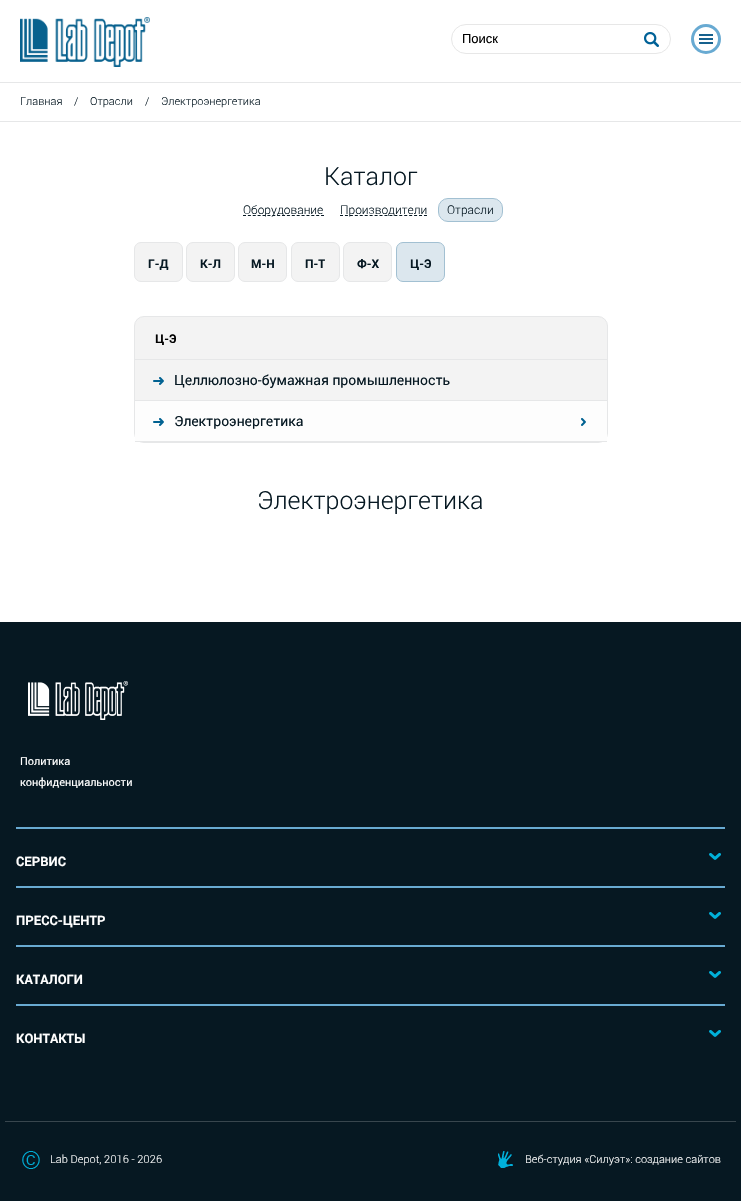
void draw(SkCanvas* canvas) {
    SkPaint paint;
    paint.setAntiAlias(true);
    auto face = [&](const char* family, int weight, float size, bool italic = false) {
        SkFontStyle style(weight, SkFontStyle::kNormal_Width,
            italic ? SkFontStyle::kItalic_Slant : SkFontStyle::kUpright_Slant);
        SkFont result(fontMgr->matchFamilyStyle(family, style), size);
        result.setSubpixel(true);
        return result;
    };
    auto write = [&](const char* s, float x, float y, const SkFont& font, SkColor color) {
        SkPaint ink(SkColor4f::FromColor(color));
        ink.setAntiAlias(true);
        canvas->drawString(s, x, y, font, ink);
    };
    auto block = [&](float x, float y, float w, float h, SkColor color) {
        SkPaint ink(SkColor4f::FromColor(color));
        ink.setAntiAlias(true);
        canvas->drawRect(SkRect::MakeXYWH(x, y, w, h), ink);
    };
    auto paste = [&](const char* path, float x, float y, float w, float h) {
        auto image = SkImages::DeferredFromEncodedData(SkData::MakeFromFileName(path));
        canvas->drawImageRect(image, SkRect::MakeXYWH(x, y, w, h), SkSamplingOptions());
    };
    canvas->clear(SK_ColorWHITE);
    paste("pic1.png", 20, 17, 130, 50);
    paint.setStyle(SkPaint::kStroke_Style);
    paint.setStrokeWidth(1);
    paint.setColor(SkColorSetRGB(231, 231, 231));
    canvas->drawRoundRect(SkRect::MakeXYWH(451.5f, 24.5f, 219, 29), 14.5f, 14.5f, paint);
    auto kFont1 = face("Liberation Sans", 400, 13);
    write("Поиск", 462, 43, kFont1, SK_ColorBLACK);
    paste("pic2.png", 644, 32, 15, 15);
    paint.setStrokeWidth(3);
    paint.setColor(SkColorSetRGB(104, 170, 210));
    canvas->drawCircle(706, 39, 13.5f, paint);
    block(699, 34, 14, 2, SkColorSetRGB(22, 97, 142));
    block(699, 38, 14, 2, SkColorSetRGB(22, 97, 142));
    block(699, 42, 14, 2, SkColorSetRGB(22, 97, 142));
    block(0, 82, 741, 1, SkColorSetRGB(230, 231, 232));
    block(0, 121, 741, 1, SkColorSetRGB(230, 231, 232));
    auto kFont2 = face("Roboto", 300, 11);
    write("Главная", 20, 105, kFont2, SkColorSetRGB(6, 24, 34));
    write("/", 74, 105, kFont2, SkColorSetRGB(6, 24, 34));
    write("Отрасли", 90, 105, kFont2, SkColorSetRGB(6, 24, 34));
    write("/", 145, 105, kFont2, SkColorSetRGB(6, 24, 34));
    write("Электроэнергетика", 161, 105, kFont2, SkColorSetRGB(6, 24, 34));
    auto kFont3 = face("Roboto", 300, 25);
    write("Каталог", 324, 185, kFont3, SkColorSetRGB(6, 24, 34));
    paint.setStrokeWidth(1);
    paint.setColor(SkColorSetRGB(6, 24, 34));
    paint.setPathEffect(SkDashPathEffect::Make({{3, 1.88f}}, 0));
    canvas->drawPath(SkPathBuilder().moveTo(243, 215.5f).lineTo(324, 215.5f).detach(), paint);
    paint.setPathEffect(nullptr);
    auto kFont4 = face("Roboto", 300, 12);
    write("Оборудование", 243, 214, kFont4, SkColorSetRGB(6, 24, 34));
    paint.setPathEffect(SkDashPathEffect::Make({{3, 1.94f}}, 0));
    canvas->drawPath(SkPathBuilder().moveTo(340, 215.5f).lineTo(427, 215.5f).detach(), paint);
    paint.setPathEffect(nullptr);
    write("Производители", 340, 214, kFont4, SkColorSetRGB(6, 24, 34));
    paint.setStyle(SkPaint::kFill_Style);
    paint.setColor(SkColorSetRGB(220, 231, 238));
    canvas->drawRoundRect(SkRect::MakeXYWH(438.5f, 198.5f, 64, 23), 9.5f, 9.5f, paint);
    paint.setStyle(SkPaint::kStroke_Style);
    paint.setColor(SkColorSetRGB(162, 192, 210));
    canvas->drawRoundRect(SkRect::MakeXYWH(438.5f, 198.5f, 64, 23), 9.5f, 9.5f, paint);
    write("Отрасли", 447, 214, kFont4, SkColorSetRGB(6, 24, 34));
    paint.setStyle(SkPaint::kFill_Style);
    paint.setColor(SkColorSetRGB(243, 243, 243));
    canvas->drawRoundRect(SkRect::MakeXYWH(134.5f, 242.5f, 48, 39), 6.5f, 6.5f, paint);
    paint.setStyle(SkPaint::kStroke_Style);
    paint.setColor(SkColorSetRGB(230, 231, 232));
    canvas->drawRoundRect(SkRect::MakeXYWH(134.5f, 242.5f, 48, 39), 6.5f, 6.5f, paint);
    auto kFont5 = face("Roboto", 700, 12);
    write("Г-Д", 148, 268, kFont5, SkColorSetRGB(6, 24, 34));
    paint.setStyle(SkPaint::kFill_Style);
    paint.setColor(SkColorSetRGB(243, 243, 243));
    canvas->drawRoundRect(SkRect::MakeXYWH(186.5f, 242.5f, 48, 39), 6.5f, 6.5f, paint);
    paint.setStyle(SkPaint::kStroke_Style);
    paint.setColor(SkColorSetRGB(230, 231, 232));
    canvas->drawRoundRect(SkRect::MakeXYWH(186.5f, 242.5f, 48, 39), 6.5f, 6.5f, paint);
    write("К-Л", 200, 268, kFont5, SkColorSetRGB(6, 24, 34));
    paint.setStyle(SkPaint::kFill_Style);
    paint.setColor(SkColorSetRGB(243, 243, 243));
    canvas->drawRoundRect(SkRect::MakeXYWH(238.5f, 242.5f, 48, 39), 6.5f, 6.5f, paint);
    paint.setStyle(SkPaint::kStroke_Style);
    paint.setColor(SkColorSetRGB(230, 231, 232));
    canvas->drawRoundRect(SkRect::MakeXYWH(238.5f, 242.5f, 48, 39), 6.5f, 6.5f, paint);
    write("М-Н", 251, 268, kFont5, SkColorSetRGB(6, 24, 34));
    paint.setStyle(SkPaint::kFill_Style);
    paint.setColor(SkColorSetRGB(243, 243, 243));
    canvas->drawRoundRect(SkRect::MakeXYWH(291.5f, 242.5f, 48, 39), 6.5f, 6.5f, paint);
    paint.setStyle(SkPaint::kStroke_Style);
    paint.setColor(SkColorSetRGB(230, 231, 232));
    canvas->drawRoundRect(SkRect::MakeXYWH(291.5f, 242.5f, 48, 39), 6.5f, 6.5f, paint);
    write("П-Т", 305, 268, kFont5, SkColorSetRGB(6, 24, 34));
    paint.setStyle(SkPaint::kFill_Style);
    paint.setColor(SkColorSetRGB(243, 243, 243));
    canvas->drawRoundRect(SkRect::MakeXYWH(343.5f, 242.5f, 48, 39), 6.5f, 6.5f, paint);
    paint.setStyle(SkPaint::kStroke_Style);
    paint.setColor(SkColorSetRGB(230, 231, 232));
    canvas->drawRoundRect(SkRect::MakeXYWH(343.5f, 242.5f, 48, 39), 6.5f, 6.5f, paint);
    write("Ф-Х", 357, 268, kFont5, SkColorSetRGB(6, 24, 34));
    paint.setStyle(SkPaint::kFill_Style);
    paint.setColor(SkColorSetRGB(220, 231, 238));
    canvas->drawRoundRect(SkRect::MakeXYWH(396.5f, 242.5f, 48, 39), 6.5f, 6.5f, paint);
    paint.setStyle(SkPaint::kStroke_Style);
    paint.setColor(SkColorSetRGB(162, 192, 210));
    canvas->drawRoundRect(SkRect::MakeXYWH(396.5f, 242.5f, 48, 39), 6.5f, 6.5f, paint);
    write("Ц-Э", 410, 268, kFont5, SkColorSetRGB(6, 24, 34));
    paint.setStyle(SkPaint::kFill_Style);
    paint.setColor(SkColorSetRGB(243, 243, 243));
    canvas->drawRoundRect(SkRect::MakeXYWH(134.5f, 316.5f, 473, 126), 9.5f, 9.5f, paint);
    paint.setStyle(SkPaint::kStroke_Style);
    paint.setColor(SkColorSetRGB(230, 231, 232));
    canvas->drawRoundRect(SkRect::MakeXYWH(134.5f, 316.5f, 473, 126), 9.5f, 9.5f, paint);
    block(135, 359, 472, 1, SkColorSetRGB(230, 231, 232));
    write("Ц-Э", 155, 343, kFont5, SK_ColorBLACK);
    block(135, 400, 472, 1, SkColorSetRGB(230, 231, 232));
    paste("pic3.png", 153, 377, 11, 8);
    auto kFont6 = face("Roboto", 400, 14);
    write("Целлюлозно-бумажная промышленность", 174, 385, kFont6, SkColorSetRGB(6, 24, 34));
    block(135, 401, 472, 40, SkColorSetRGB(253, 253, 253));
    block(135, 441, 472, 1, SkColorSetRGB(230, 231, 232));
    paste("pic4.png", 153, 418, 11, 8);
    write("Электроэнергетика", 174, 426, kFont6, SkColorSetRGB(6, 24, 34));
    paste("pic5.png", 581, 418, 5, 8);
    write("Электроэнергетика", 257, 509, kFont3, SkColorSetRGB(6, 24, 34));
    block(0, 622, 741, 579, SkColorSetRGB(6, 24, 34));
    block(5, 1121, 731, 1, SkColorSetRGB(56, 70, 78));
    paste("pic6.png", 28, 681, 100, 39);
    auto kFont7 = face("Roboto", 400, 11);
    write("Политика", 20, 765, kFont7, SK_ColorWHITE);
    write("конфиденциальности", 20, 786, kFont7, SK_ColorWHITE);
    block(16, 827, 709, 2, SkColorSetRGB(104, 170, 210));
    auto kFont8 = face("Roboto", 700, 13);
    write("СЕРВИС", 16, 866, kFont8, SK_ColorWHITE);
    paste("pic7.png", 709, 853, 12, 7);
    block(16, 886, 709, 2, SkColorSetRGB(104, 170, 210));
    write("ПРЕСС-ЦЕНТР", 16, 925, kFont8, SK_ColorWHITE);
    paste("pic7.png", 709, 912, 12, 7);
    block(16, 945, 709, 2, SkColorSetRGB(104, 170, 210));
    write("КАТАЛОГИ", 16, 984, kFont8, SK_ColorWHITE);
    paste("pic7.png", 709, 971, 12, 7);
    block(16, 1004, 709, 2, SkColorSetRGB(104, 170, 210));
    write("КОНТАКТЫ", 16, 1043, kFont8, SK_ColorWHITE);
    paste("pic7.png", 709, 1030, 12, 7);
    paste("pic8.png", 22, 1151, 18, 18);
    write("Lab Depot, 2016 - 2026", 50, 1163, kFont2, SK_ColorWHITE);
    paste("pic9.png", 498, 1151, 15, 17);
    write("Веб-студия «Силуэт»: создание сайтов", 525, 1163, kFont2, SK_ColorWHITE);
}
